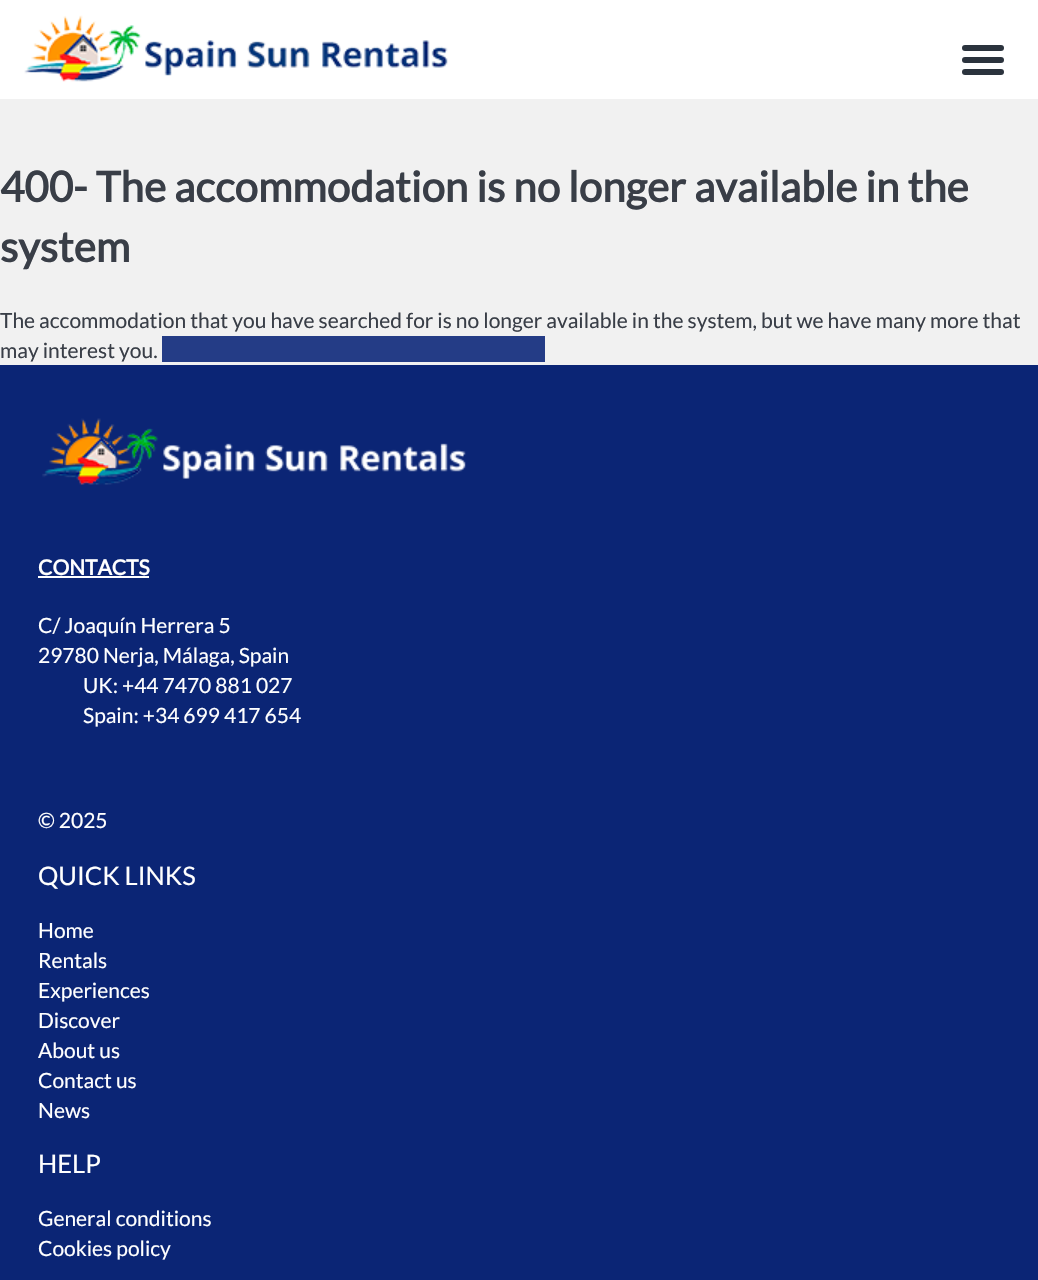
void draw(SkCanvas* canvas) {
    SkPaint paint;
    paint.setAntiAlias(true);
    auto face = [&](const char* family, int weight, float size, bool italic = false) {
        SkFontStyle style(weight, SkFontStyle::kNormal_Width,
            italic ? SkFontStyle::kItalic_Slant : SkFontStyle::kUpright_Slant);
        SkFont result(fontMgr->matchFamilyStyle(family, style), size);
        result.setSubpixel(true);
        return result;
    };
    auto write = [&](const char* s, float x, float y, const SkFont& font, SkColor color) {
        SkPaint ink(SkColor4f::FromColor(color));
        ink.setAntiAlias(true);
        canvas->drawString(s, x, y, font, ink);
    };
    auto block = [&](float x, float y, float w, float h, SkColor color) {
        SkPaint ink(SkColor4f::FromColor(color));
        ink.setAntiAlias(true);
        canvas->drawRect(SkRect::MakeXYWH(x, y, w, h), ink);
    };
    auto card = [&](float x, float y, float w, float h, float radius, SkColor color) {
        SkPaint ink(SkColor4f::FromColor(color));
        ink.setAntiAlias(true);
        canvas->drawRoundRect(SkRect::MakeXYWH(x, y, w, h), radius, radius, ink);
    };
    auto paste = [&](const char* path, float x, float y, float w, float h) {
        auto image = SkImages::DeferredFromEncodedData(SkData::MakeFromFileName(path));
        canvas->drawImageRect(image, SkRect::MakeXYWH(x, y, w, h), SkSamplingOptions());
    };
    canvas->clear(SkColorSetRGB(241, 241, 241));
    block(0, 0, 1038, 99, SK_ColorWHITE);
    paste("pic1.png", 24, 15, 424, 67);
    card(962, 45, 42, 6, 3, SkColorSetRGB(43, 51, 61));
    card(962, 57, 42, 6, 3, SkColorSetRGB(43, 51, 61));
    card(962, 69, 42, 6, 3, SkColorSetRGB(43, 51, 61));
    auto kFont1 = face("Lato", 700, 42);
    write("400- The accommodation is no longer available in the", 0, 202, kFont1, SkColorSetRGB(57, 62, 71));
    write("system", 0, 262, kFont1, SkColorSetRGB(57, 62, 71));
    auto kFont2 = face("Lato", 400, 21);
    write("The accommodation that you have searched for is no longer available in the system, but we have many more that", 0, 328, kFont2, SkColorSetRGB(57, 62, 71));
    write("may interest you.", 0, 358, kFont2, SkColorSetRGB(57, 62, 71));
    block(162, 336, 383, 26, SkColorSetRGB(36, 60, 134));
    block(0, 365, 1038, 915, SkColorSetRGB(11, 37, 117));
    paste("pic2.png", 42, 418, 424, 67);
    auto kFont3 = face("Lato", 700, 21);
    write("CONTACTS", 38, 575, kFont3, SK_ColorWHITE);
    block(38, 576, 111, 2, SK_ColorWHITE);
    write("C/ Joaquín Herrera 5", 38, 633, kFont2, SK_ColorWHITE);
    write("29780 Nerja, Málaga, Spain", 38, 663, kFont2, SK_ColorWHITE);
    write("UK: +44 7470 881 027", 83, 693, kFont2, SK_ColorWHITE);
    write("Spain: +34 699 417 654", 83, 723, kFont2, SK_ColorWHITE);
    write("© 2025", 38, 828, kFont2, SK_ColorWHITE);
    auto kFont4 = face("Lato", 400, 25.5f);
    write("QUICK LINKS", 38, 885, kFont4, SK_ColorWHITE);
    write("Home", 38, 938, kFont2, SK_ColorWHITE);
    write("Rentals", 38, 968, kFont2, SK_ColorWHITE);
    write("Experiences", 38, 998, kFont2, SK_ColorWHITE);
    write("Discover", 38, 1028, kFont2, SK_ColorWHITE);
    write("About us", 38, 1058, kFont2, SK_ColorWHITE);
    write("Contact us", 38, 1088, kFont2, SK_ColorWHITE);
    write("News", 38, 1118, kFont2, SK_ColorWHITE);
    write("HELP", 38, 1173, kFont4, SK_ColorWHITE);
    write("General conditions", 38, 1226, kFont2, SK_ColorWHITE);
    write("Cookies policy", 38, 1256, kFont2, SK_ColorWHITE);
}
